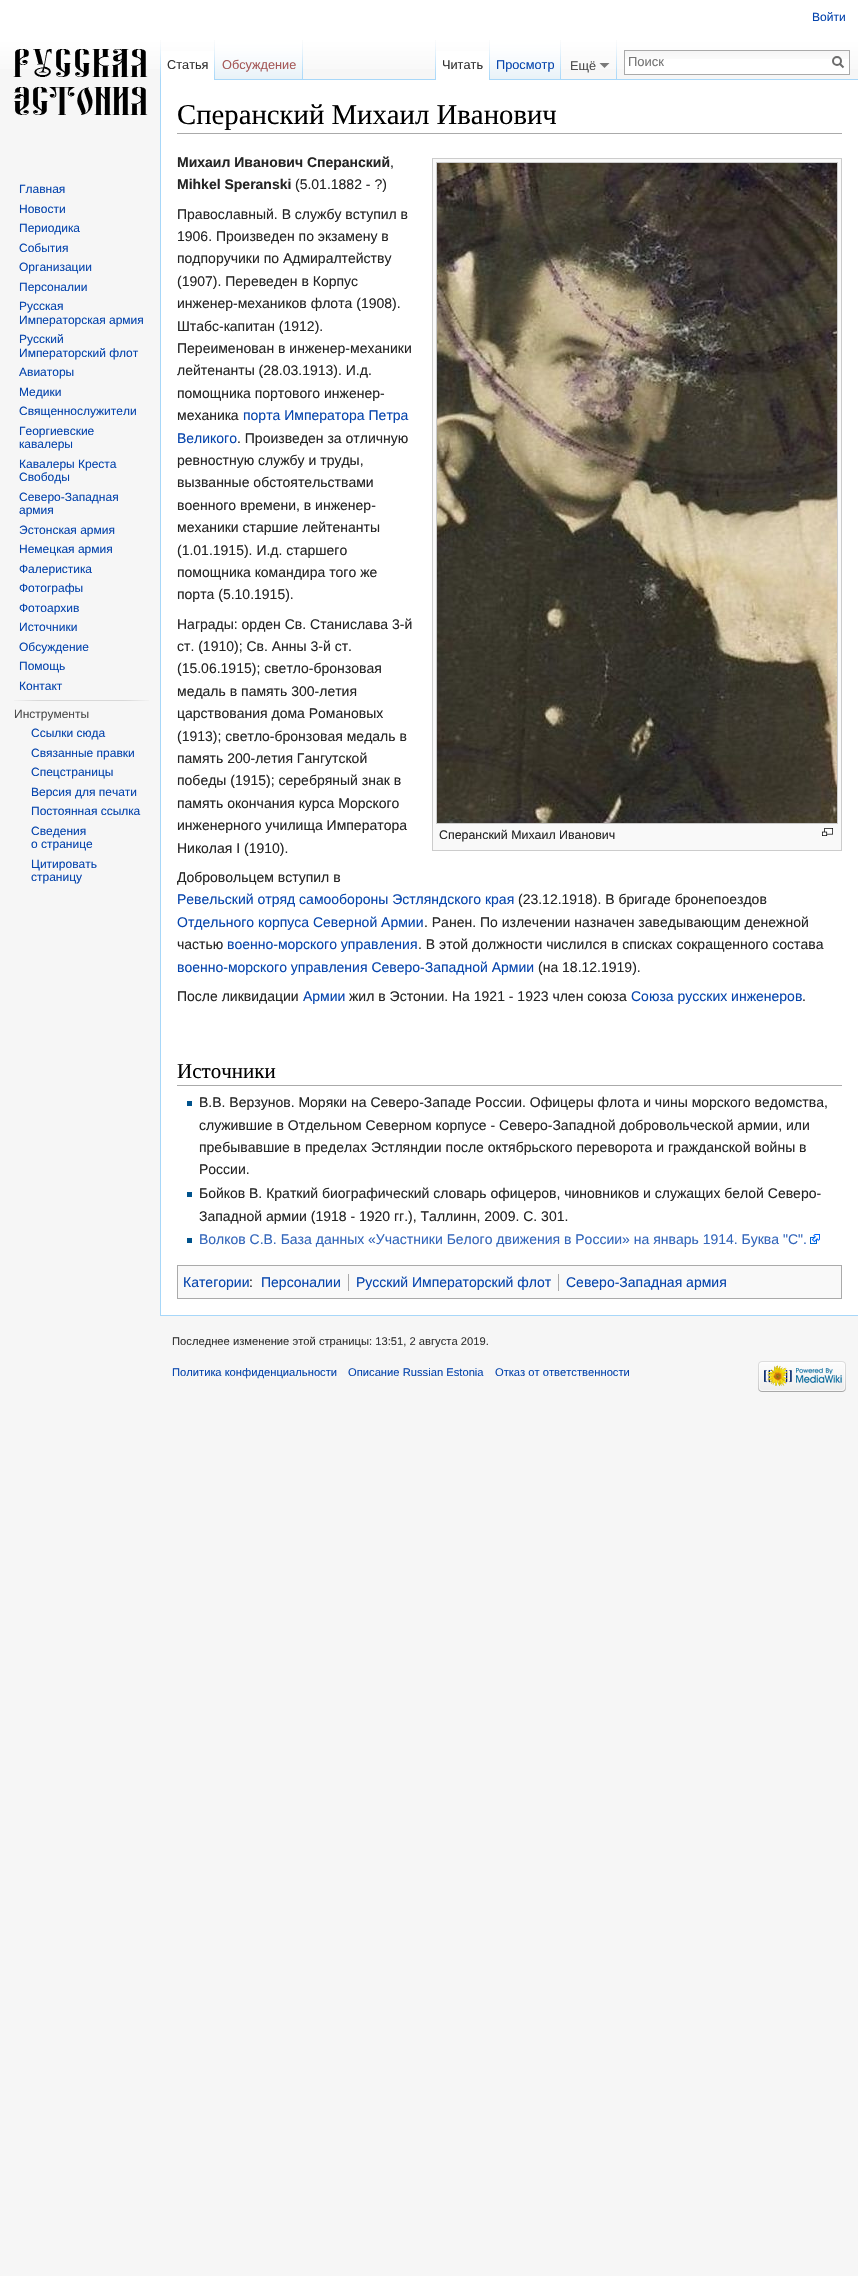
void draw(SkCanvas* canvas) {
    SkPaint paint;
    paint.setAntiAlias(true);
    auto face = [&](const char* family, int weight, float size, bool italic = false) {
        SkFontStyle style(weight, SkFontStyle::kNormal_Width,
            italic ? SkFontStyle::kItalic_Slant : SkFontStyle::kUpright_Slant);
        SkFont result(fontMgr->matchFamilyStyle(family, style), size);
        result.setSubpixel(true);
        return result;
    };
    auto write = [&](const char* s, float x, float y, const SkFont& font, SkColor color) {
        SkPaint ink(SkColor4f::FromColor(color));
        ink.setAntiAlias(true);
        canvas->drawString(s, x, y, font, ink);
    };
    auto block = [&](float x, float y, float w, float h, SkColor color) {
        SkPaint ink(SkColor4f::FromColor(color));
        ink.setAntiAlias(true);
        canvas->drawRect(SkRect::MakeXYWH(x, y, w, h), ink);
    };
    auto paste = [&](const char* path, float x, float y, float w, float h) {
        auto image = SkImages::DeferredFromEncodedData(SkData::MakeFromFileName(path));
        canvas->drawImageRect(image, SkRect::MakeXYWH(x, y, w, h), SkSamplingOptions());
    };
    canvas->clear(SkColorSetRGB(246, 246, 246));
    {
        const SkColor colors[] = {SK_ColorWHITE, SkColorSetRGB(246, 246, 246)};
        const float stops[] = {0.5f, 1};
        const SkPoint ends[] = {{429, 0}, {429, 80}};
        paint.setShader(SkGradientShader::MakeLinear(ends, colors, stops, 2, SkTileMode::kClamp));
        paint.setAlpha(255);
    }
    canvas->drawRect(SkRect::MakeXYWH(0, 0, 858, 69), paint);
    auto kFont1 = face("Liberation Sans", 400, 12);
    write("Войти", 812, 21, kFont1, SkColorSetRGB(6, 69, 173));
    paste("pic1.png", 160, 40, 1, 39);
    block(161, 51, 53, 29, SK_ColorWHITE);
    paste("pic2.png", 214, 40, 1, 40);
    auto kFont2 = face("Liberation Sans", 400, 12.75f);
    write("Статья", 167, 69, kFont2, SkColorSetRGB(51, 51, 51));
    paste("pic3.png", 215, 40, 88, 40);
    paste("pic4.png", 302, 40, 1, 39);
    write("Обсуждение", 222, 69, kFont2, SkColorSetRGB(165, 88, 88));
    paste("pic1.png", 435, 40, 1, 39);
    block(303, 79, 555, 1, SkColorSetRGB(167, 215, 249));
    block(436, 51, 53, 29, SK_ColorWHITE);
    paste("pic2.png", 489, 40, 1, 40);
    write("Читать", 442, 69, kFont2, SkColorSetRGB(51, 51, 51));
    paste("pic5.png", 490, 40, 71, 40);
    paste("pic4.png", 560, 40, 1, 39);
    write("Просмотр", 496, 69, kFont2, SkColorSetRGB(6, 69, 173));
    paste("pic1.png", 616, 40, 1, 39);
    write("Ещё", 570, 70, kFont2, SkColorSetRGB(77, 77, 77));
    paint.setShader(nullptr);
    paint.setColor(SkColorSetRGB(121, 121, 121));
    canvas->drawPath(SkPathBuilder().moveTo(609.5f, 63).lineTo(604.5f, 68).lineTo(599.5f, 63).close().detach(), paint);
    block(625, 59, 224, 15, SK_ColorWHITE);
    paste("pic6.png", 625, 51, 224, 8);
    paint.setStyle(SkPaint::kStroke_Style);
    paint.setStrokeWidth(1);
    paint.setColor(SkColorSetRGB(170, 170, 170));
    canvas->drawRect(SkRect::MakeXYWH(624.5f, 50.5f, 225, 24), paint);
    auto kFont3 = face("Liberation Sans", 400, 13);
    write("Поиск", 628, 66, kFont3, SkColorSetRGB(117, 117, 117));
    paint.setStrokeWidth(2);
    paint.setColor(SkColorSetRGB(108, 108, 108));
    canvas->drawPath(SkPathBuilder().moveTo(843.5f, 67.5f).lineTo(839.5f, 63.5f).detach(), paint);
    canvas->drawCircle(837, 61, 4, paint);
    paste("pic7.png", 13, 49, 135, 66);
    write("Главная", 19, 193, kFont1, SkColorSetRGB(6, 69, 173));
    write("Новости", 19, 213, kFont1, SkColorSetRGB(6, 69, 173));
    write("Периодика", 19, 232, kFont1, SkColorSetRGB(6, 69, 173));
    write("События", 19, 252, kFont1, SkColorSetRGB(6, 69, 173));
    write("Организации", 19, 271, kFont1, SkColorSetRGB(6, 69, 173));
    write("Персоналии", 19, 291, kFont1, SkColorSetRGB(6, 69, 173));
    write("Русская", 19, 310, kFont1, SkColorSetRGB(6, 69, 173));
    write("Императорская армия", 19, 324, kFont1, SkColorSetRGB(6, 69, 173));
    write("Русский", 19, 343, kFont1, SkColorSetRGB(6, 69, 173));
    write("Императорский флот", 19, 357, kFont1, SkColorSetRGB(6, 69, 173));
    write("Авиаторы", 19, 376, kFont1, SkColorSetRGB(6, 69, 173));
    write("Медики", 19, 396, kFont1, SkColorSetRGB(6, 69, 173));
    write("Священнослужители", 19, 415, kFont1, SkColorSetRGB(6, 69, 173));
    write("Георгиевские", 19, 435, kFont1, SkColorSetRGB(6, 69, 173));
    write("кавалеры", 19, 448, kFont1, SkColorSetRGB(6, 69, 173));
    write("Кавалеры Креста", 19, 468, kFont1, SkColorSetRGB(6, 69, 173));
    write("Свободы", 19, 481, kFont1, SkColorSetRGB(6, 69, 173));
    write("Северо-Западная", 19, 501, kFont1, SkColorSetRGB(6, 69, 173));
    write("армия", 19, 514, kFont1, SkColorSetRGB(6, 69, 173));
    write("Эстонская армия", 19, 534, kFont1, SkColorSetRGB(6, 69, 173));
    write("Немецкая армия", 19, 553, kFont1, SkColorSetRGB(6, 69, 173));
    write("Фалеристика", 19, 573, kFont1, SkColorSetRGB(6, 69, 173));
    write("Фотографы", 19, 592, kFont1, SkColorSetRGB(6, 69, 173));
    write("Фотоархив", 19, 612, kFont1, SkColorSetRGB(6, 69, 173));
    write("Источники", 19, 631, kFont1, SkColorSetRGB(6, 69, 173));
    write("Обсуждение", 19, 651, kFont1, SkColorSetRGB(6, 69, 173));
    write("Помощь", 19, 670, kFont1, SkColorSetRGB(6, 69, 173));
    write("Контакт", 19, 690, kFont1, SkColorSetRGB(6, 69, 173));
    paste("pic8.png", 14, 700, 135, 1);
    write("Инструменты", 14, 718, kFont1, SkColorSetRGB(77, 77, 77));
    write("Ссылки сюда", 31, 737, kFont1, SkColorSetRGB(6, 69, 173));
    write("Связанные правки", 31, 757, kFont1, SkColorSetRGB(6, 69, 173));
    write("Спецстраницы", 31, 776, kFont1, SkColorSetRGB(6, 69, 173));
    write("Версия для печати", 31, 796, kFont1, SkColorSetRGB(6, 69, 173));
    write("Постоянная ссылка", 31, 815, kFont1, SkColorSetRGB(6, 69, 173));
    write("Сведения", 31, 835, kFont1, SkColorSetRGB(6, 69, 173));
    write("о странице", 31, 848, kFont1, SkColorSetRGB(6, 69, 173));
    write("Цитировать", 31, 868, kFont1, SkColorSetRGB(6, 69, 173));
    write("страницу", 31, 881, kFont1, SkColorSetRGB(6, 69, 173));
    block(161, 80, 697, 1235, SK_ColorWHITE);
    block(160, 1315, 698, 1, SkColorSetRGB(167, 215, 249));
    block(160, 79, 1, 1237, SkColorSetRGB(167, 215, 249));
    block(177, 133, 665, 1, SkColorSetRGB(170, 170, 170));
    auto kFont4 = face("Liberation Serif", 400, 28.75f);
    write("Сперанский Михаил Иванович", 177, 124, kFont4, SK_ColorBLACK);
    auto kFont5 = face("Liberation Sans", 700, 14);
    write("Михаил Иванович Сперанский", 177, 167, kFont5, SkColorSetRGB(37, 37, 37));
    auto kFont6 = face("Liberation Sans", 400, 14);
    write(",", 390, 167, kFont6, SkColorSetRGB(37, 37, 37));
    write("Mihkel Speranski", 177, 189, kFont5, SkColorSetRGB(37, 37, 37));
    write("(5.01.1882 - ?)", 295, 189, kFont6, SkColorSetRGB(37, 37, 37));
    write("Православный. В службу вступил в", 177, 219, kFont6, SkColorSetRGB(37, 37, 37));
    write("1906. Произведен по экзамену в", 177, 241, kFont6, SkColorSetRGB(37, 37, 37));
    write("подпоручики по Адмиралтейству", 177, 263, kFont6, SkColorSetRGB(37, 37, 37));
    write("(1907). Переведен в Корпус", 177, 286, kFont6, SkColorSetRGB(37, 37, 37));
    write("инженер-механиков флота (1908).", 177, 308, kFont6, SkColorSetRGB(37, 37, 37));
    write("Штабс-капитан (1912).", 177, 331, kFont6, SkColorSetRGB(37, 37, 37));
    write("Переименован в инженер-механики", 177, 353, kFont6, SkColorSetRGB(37, 37, 37));
    write("лейтенанты (28.03.1913). И.д.", 177, 375, kFont6, SkColorSetRGB(37, 37, 37));
    write("помощника портового инженер-", 177, 398, kFont6, SkColorSetRGB(37, 37, 37));
    write("механика", 177, 420, kFont6, SkColorSetRGB(37, 37, 37));
    write("порта Императора Петра", 243, 420, kFont6, SkColorSetRGB(6, 69, 173));
    write("Великого", 177, 443, kFont6, SkColorSetRGB(6, 69, 173));
    write(". Произведен за отличную", 237, 443, kFont6, SkColorSetRGB(37, 37, 37));
    write("ревностную службу и труды,", 177, 465, kFont6, SkColorSetRGB(37, 37, 37));
    write("вызванные обстоятельствами", 177, 487, kFont6, SkColorSetRGB(37, 37, 37));
    write("военного времени, в инженер-", 177, 510, kFont6, SkColorSetRGB(37, 37, 37));
    write("механики старшие лейтенанты", 177, 532, kFont6, SkColorSetRGB(37, 37, 37));
    write("(1.01.1915). И.д. старшего", 177, 555, kFont6, SkColorSetRGB(37, 37, 37));
    write("помощника командира того же", 177, 577, kFont6, SkColorSetRGB(37, 37, 37));
    write("порта (5.10.1915).", 177, 599, kFont6, SkColorSetRGB(37, 37, 37));
    write("Награды: орден Св. Станислава 3-й", 177, 629, kFont6, SkColorSetRGB(37, 37, 37));
    write("ст. (1910); Св. Анны 3-й ст.", 177, 651, kFont6, SkColorSetRGB(37, 37, 37));
    write("(15.06.1915); светло-бронзовая", 177, 673, kFont6, SkColorSetRGB(37, 37, 37));
    write("медаль в память 300-летия", 177, 696, kFont6, SkColorSetRGB(37, 37, 37));
    write("царствования дома Романовых", 177, 718, kFont6, SkColorSetRGB(37, 37, 37));
    write("(1913); светло-бронзовая медаль в", 177, 741, kFont6, SkColorSetRGB(37, 37, 37));
    write("память 200-летия Гангутской", 177, 763, kFont6, SkColorSetRGB(37, 37, 37));
    write("победы (1915); серебряный знак в", 177, 785, kFont6, SkColorSetRGB(37, 37, 37));
    write("память окончания курса Морского", 177, 808, kFont6, SkColorSetRGB(37, 37, 37));
    write("инженерного училища Императора", 177, 830, kFont6, SkColorSetRGB(37, 37, 37));
    write("Николая I (1910).", 177, 853, kFont6, SkColorSetRGB(37, 37, 37));
    paint.setStyle(SkPaint::kFill_Style);
    paint.setColor(SkColorSetRGB(249, 249, 249));
    canvas->drawRect(SkRect::MakeXYWH(432.5f, 158.5f, 409, 692), paint);
    paint.setStyle(SkPaint::kStroke_Style);
    paint.setStrokeWidth(1);
    paint.setColor(SkColorSetRGB(204, 204, 204));
    canvas->drawRect(SkRect::MakeXYWH(432.5f, 158.5f, 409, 692), paint);
    canvas->drawRect(SkRect::MakeXYWH(436.5f, 162.5f, 401, 661), paint);
    paste("pic9.png", 437, 163, 400, 660);
    auto kFont7 = face("Liberation Sans", 400, 12.4f);
    write("Сперанский Михаил Иванович", 439, 839, kFont7, SkColorSetRGB(37, 37, 37));
    paste("pic10.png", 822, 828, 11, 8);
    write("Добровольцем вступил в", 177, 882, kFont6, SkColorSetRGB(37, 37, 37));
    write("Ревельский отряд самообороны Эстляндского края", 177, 904, kFont6, SkColorSetRGB(6, 69, 173));
    write("(23.12.1918). В бригаде бронепоездов", 518, 904, kFont6, SkColorSetRGB(37, 37, 37));
    write("Отдельного корпуса Северной Армии", 177, 927, kFont6, SkColorSetRGB(6, 69, 173));
    write(". Ранен. По излечении назначен заведывающим денежной", 424, 927, kFont6, SkColorSetRGB(37, 37, 37));
    write("частью", 177, 949, kFont6, SkColorSetRGB(37, 37, 37));
    write("военно-морского управления", 227, 949, kFont6, SkColorSetRGB(6, 69, 173));
    write(". В этой должности числился в списках сокращенного состава", 418, 949, kFont6, SkColorSetRGB(37, 37, 37));
    write("военно-морского управления Северо-Западной Армии", 177, 972, kFont6, SkColorSetRGB(6, 69, 173));
    write("(на 18.12.1919).", 538, 972, kFont6, SkColorSetRGB(37, 37, 37));
    write("После ликвидации", 177, 1001, kFont6, SkColorSetRGB(37, 37, 37));
    write("Армии", 303, 1001, kFont6, SkColorSetRGB(6, 69, 173));
    write("жил в Эстонии. На 1921 - 1923 член союза", 349, 1001, kFont6, SkColorSetRGB(37, 37, 37));
    write("Союза русских инженеров", 631, 1001, kFont6, SkColorSetRGB(6, 69, 173));
    write(".", 802, 1001, kFont6, SkColorSetRGB(37, 37, 37));
    block(177, 1085, 665, 1, SkColorSetRGB(170, 170, 170));
    auto kFont8 = face("Liberation Serif", 400, 21);
    write("Источники", 177, 1078, kFont8, SK_ColorBLACK);
    block(187, 1101, 5, 5, SkColorSetRGB(0, 82, 140));
    write("В.В. Верзунов. Моряки на Северо-Западе Росcии. Офицеры флота и чины морского ведомства,", 199, 1107, kFont6, SkColorSetRGB(37, 37, 37));
    write("служившие в Отдельном Северном корпусе - Северо-Западной добровольческой армии, или", 199, 1130, kFont6, SkColorSetRGB(37, 37, 37));
    write("пребывавшие в пределах Эстляндии после октябрьского переворота и гражданской войны в", 199, 1152, kFont6, SkColorSetRGB(37, 37, 37));
    write("России.", 199, 1174, kFont6, SkColorSetRGB(37, 37, 37));
    block(187, 1192, 5, 5, SkColorSetRGB(0, 82, 140));
    write("Бойков В. Краткий биографический словарь офицеров, чиновников и служащих белой Северо-", 199, 1198, kFont6, SkColorSetRGB(37, 37, 37));
    write("Западной армии (1918 - 1920 гг.), Таллинн, 2009. С. 301.", 199, 1221, kFont6, SkColorSetRGB(37, 37, 37));
    block(187, 1238, 5, 5, SkColorSetRGB(0, 82, 140));
    write("Волков С.В. База данных «Участники Белого движения в России» на январь 1914. Буква \"С\".", 199, 1244, kFont6, SkColorSetRGB(51, 102, 187));
    paste("pic11.png", 810, 1234, 10, 10);
    paint.setStyle(SkPaint::kFill_Style);
    paint.setColor(SkColorSetRGB(249, 249, 249));
    canvas->drawRect(SkRect::MakeXYWH(177.5f, 1265.5f, 664, 33), paint);
    paint.setStyle(SkPaint::kStroke_Style);
    paint.setColor(SkColorSetRGB(170, 170, 170));
    canvas->drawRect(SkRect::MakeXYWH(177.5f, 1265.5f, 664, 33), paint);
    write("Категории", 183, 1287, kFont6, SkColorSetRGB(6, 69, 173));
    write(":", 249, 1287, kFont6, SkColorSetRGB(37, 37, 37));
    write("Персоналии", 261, 1287, kFont6, SkColorSetRGB(6, 69, 173));
    block(348, 1274, 1, 17, SkColorSetRGB(170, 170, 170));
    write("Русский Императорский флот", 356, 1287, kFont6, SkColorSetRGB(6, 69, 173));
    block(558, 1274, 1, 17, SkColorSetRGB(170, 170, 170));
    write("Северо-Западная армия", 566, 1287, kFont6, SkColorSetRGB(6, 69, 173));
    auto kFont9 = face("Liberation Sans", 400, 11.2f);
    write("Последнее изменение этой страницы: 13:51, 2 августа 2019.", 172, 1345, kFont9, SkColorSetRGB(51, 51, 51));
    write("Политика конфиденциальности", 172, 1376, kFont9, SkColorSetRGB(6, 69, 173));
    write("Описание Russian Estonia", 348, 1376, kFont9, SkColorSetRGB(6, 69, 173));
    write("Отказ от ответственности", 495, 1376, kFont9, SkColorSetRGB(6, 69, 173));
    paste("pic12.png", 758, 1361, 88, 31);
}
